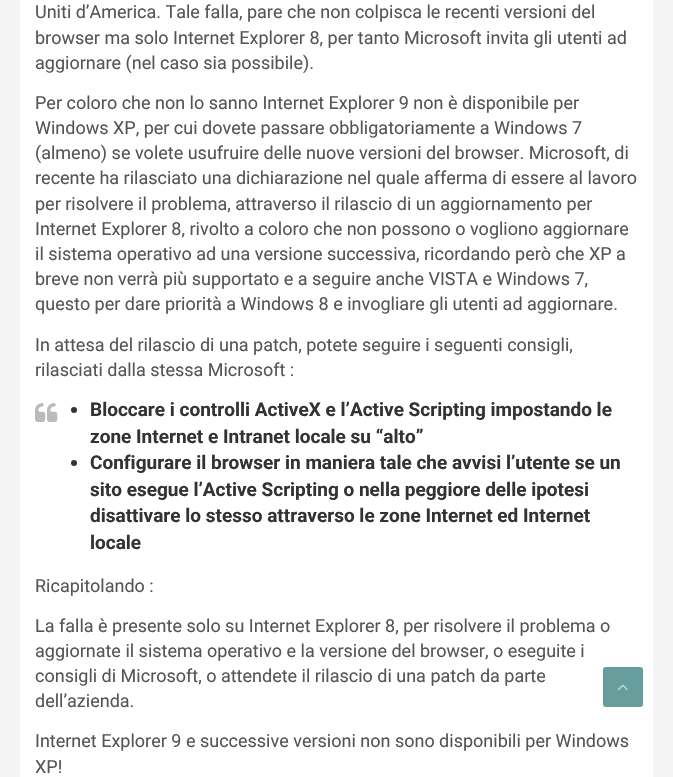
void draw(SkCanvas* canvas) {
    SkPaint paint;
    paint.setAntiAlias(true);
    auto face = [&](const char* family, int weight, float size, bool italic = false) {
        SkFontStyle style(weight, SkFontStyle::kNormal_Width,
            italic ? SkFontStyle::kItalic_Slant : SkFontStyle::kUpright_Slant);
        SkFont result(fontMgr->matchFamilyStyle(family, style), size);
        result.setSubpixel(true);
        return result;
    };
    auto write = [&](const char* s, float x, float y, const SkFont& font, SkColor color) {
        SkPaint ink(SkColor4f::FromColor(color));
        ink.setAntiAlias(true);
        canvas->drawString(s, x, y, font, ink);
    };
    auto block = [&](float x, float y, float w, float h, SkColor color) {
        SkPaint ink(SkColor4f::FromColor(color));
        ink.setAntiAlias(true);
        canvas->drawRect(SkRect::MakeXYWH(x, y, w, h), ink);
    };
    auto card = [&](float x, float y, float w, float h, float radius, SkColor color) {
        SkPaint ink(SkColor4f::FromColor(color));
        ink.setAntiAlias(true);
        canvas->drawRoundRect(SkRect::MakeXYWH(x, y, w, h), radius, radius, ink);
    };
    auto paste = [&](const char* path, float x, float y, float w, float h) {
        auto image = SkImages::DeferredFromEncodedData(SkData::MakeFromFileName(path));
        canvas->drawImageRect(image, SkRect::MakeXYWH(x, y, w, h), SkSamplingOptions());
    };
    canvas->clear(SkColorSetRGB(244, 244, 244));
    block(20, 0, 633, 777, SK_ColorWHITE);
    auto kFont1 = face("Roboto", 400, 18);
    write("Uniti d’America. Tale falla, pare che non colpisca le recenti versioni del", 35, 18, kFont1, SkColorSetRGB(85, 85, 85));
    write("browser ma solo Internet Explorer 8, per tanto Microsoft invita gli utenti ad", 35, 44, kFont1, SkColorSetRGB(85, 85, 85));
    write("aggiornare (nel caso sia possibile).", 35, 69, kFont1, SkColorSetRGB(85, 85, 85));
    write("Per coloro che non lo sanno Internet Explorer 9 non è disponibile per", 35, 109, kFont1, SkColorSetRGB(85, 85, 85));
    write("Windows XP, per cui dovete passare obbligatoriamente a Windows 7", 35, 134, kFont1, SkColorSetRGB(85, 85, 85));
    write("(almeno) se volete usufruire delle nuove versioni del browser. Microsoft, di", 35, 159, kFont1, SkColorSetRGB(85, 85, 85));
    write("recente ha rilasciato una dichiarazione nel quale afferma di essere al lavoro", 35, 184, kFont1, SkColorSetRGB(85, 85, 85));
    write("per risolvere il problema, attraverso il rilascio di un aggiornamento per", 35, 210, kFont1, SkColorSetRGB(85, 85, 85));
    write("Internet Explorer 8, rivolto a coloro che non possono o vogliono aggiornare", 35, 235, kFont1, SkColorSetRGB(85, 85, 85));
    write("il sistema operativo ad una versione successiva, ricordando però che XP a", 35, 260, kFont1, SkColorSetRGB(85, 85, 85));
    write("breve non verrà più supportato e a seguire anche VISTA e Windows 7,", 35, 285, kFont1, SkColorSetRGB(85, 85, 85));
    write("questo per dare priorità a Windows 8 e invogliare gli utenti ad aggiornare.", 35, 310, kFont1, SkColorSetRGB(85, 85, 85));
    write("In attesa del rilascio di una patch, potete seguire i seguenti consigli,", 35, 351, kFont1, SkColorSetRGB(85, 85, 85));
    write("rilasciati dalla stessa Microsoft :", 35, 376, kFont1, SkColorSetRGB(85, 85, 85));
    paste("pic1.png", 35, 403, 23, 19);
    paint.setColor(SkColorSetRGB(51, 51, 51));
    canvas->drawCircle(74, 410, 3, paint);
    auto kFont2 = face("Roboto", 700, 19);
    write("Bloccare i controlli ActiveX e l’Active Scripting impostando le", 90, 416, kFont2, SkColorSetRGB(51, 51, 51));
    write("zone Internet e Intranet locale su “alto”", 90, 443, kFont2, SkColorSetRGB(51, 51, 51));
    canvas->drawCircle(74, 463, 3, paint);
    write("Configurare il browser in maniera tale che avvisi l’utente se un", 90, 469, kFont2, SkColorSetRGB(51, 51, 51));
    write("sito esegue l’Active Scripting o nella peggiore delle ipotesi", 90, 496, kFont2, SkColorSetRGB(51, 51, 51));
    write("disattivare lo stesso attraverso le zone Internet ed Internet", 90, 522, kFont2, SkColorSetRGB(51, 51, 51));
    write("locale", 90, 549, kFont2, SkColorSetRGB(51, 51, 51));
    write("Ricapitolando :", 35, 592, kFont1, SkColorSetRGB(85, 85, 85));
    write("La falla è presente solo su Internet Explorer 8, per risolvere il problema o", 35, 632, kFont1, SkColorSetRGB(85, 85, 85));
    write("aggiornate il sistema operativo e la versione del browser, o eseguite i", 35, 657, kFont1, SkColorSetRGB(85, 85, 85));
    write("consigli di Microsoft, o attendete il rilascio di una patch da parte", 35, 682, kFont1, SkColorSetRGB(85, 85, 85));
    write("dell’azienda.", 35, 707, kFont1, SkColorSetRGB(85, 85, 85));
    write("Internet Explorer 9 e successive versioni non sono disponibili per Windows", 35, 747, kFont1, SkColorSetRGB(85, 85, 85));
    write("XP!", 35, 773, kFont1, SkColorSetRGB(85, 85, 85));
    card(603, 667, 40, 40, 3, SkColorSetRGB(104, 157, 157));
    paste("pic2.png", 617, 684, 11, 7);
}
